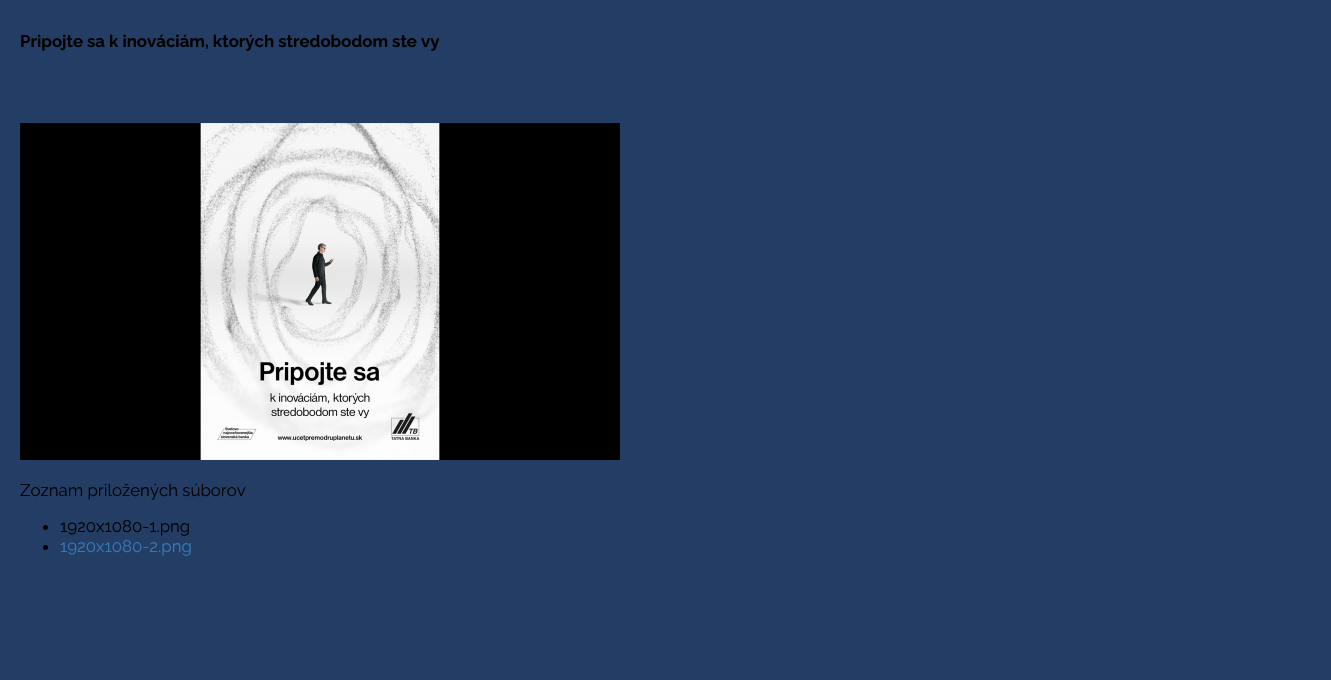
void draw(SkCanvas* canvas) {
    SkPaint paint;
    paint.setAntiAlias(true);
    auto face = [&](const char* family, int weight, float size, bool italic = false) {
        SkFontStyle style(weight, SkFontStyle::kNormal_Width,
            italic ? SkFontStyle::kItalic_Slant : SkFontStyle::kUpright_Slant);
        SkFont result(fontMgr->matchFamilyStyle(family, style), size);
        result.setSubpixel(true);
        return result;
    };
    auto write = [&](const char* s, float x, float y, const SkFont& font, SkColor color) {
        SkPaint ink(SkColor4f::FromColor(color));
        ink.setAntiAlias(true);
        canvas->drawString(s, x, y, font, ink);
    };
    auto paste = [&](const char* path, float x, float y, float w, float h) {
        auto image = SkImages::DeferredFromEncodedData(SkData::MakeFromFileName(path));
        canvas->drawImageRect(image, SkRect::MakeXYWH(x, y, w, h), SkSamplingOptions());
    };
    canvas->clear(SkColorSetRGB(35, 61, 100));
    auto kFont1 = face("Raleway", 700, 16.8f);
    write("Pripojte sa k inováciám, ktorých stredobodom ste vy", 20, 47, kFont1, SK_ColorBLACK);
    paste("pic1.png", 20, 123, 600, 337);
    auto kFont2 = face("Raleway", 400, 16.8f);
    write("Zoznam priložených súborov", 20, 496, kFont2, SK_ColorBLACK);
    paint.setColor(SK_ColorBLACK);
    canvas->drawCircle(45.5f, 527.5f, 2.5f, paint);
    write("1920x1080-1.png", 60, 532, kFont2, SK_ColorBLACK);
    canvas->drawCircle(45.5f, 547.5f, 2.5f, paint);
    write("1920x1080-2.png", 60, 552, kFont2, SkColorSetRGB(51, 122, 183));
}
